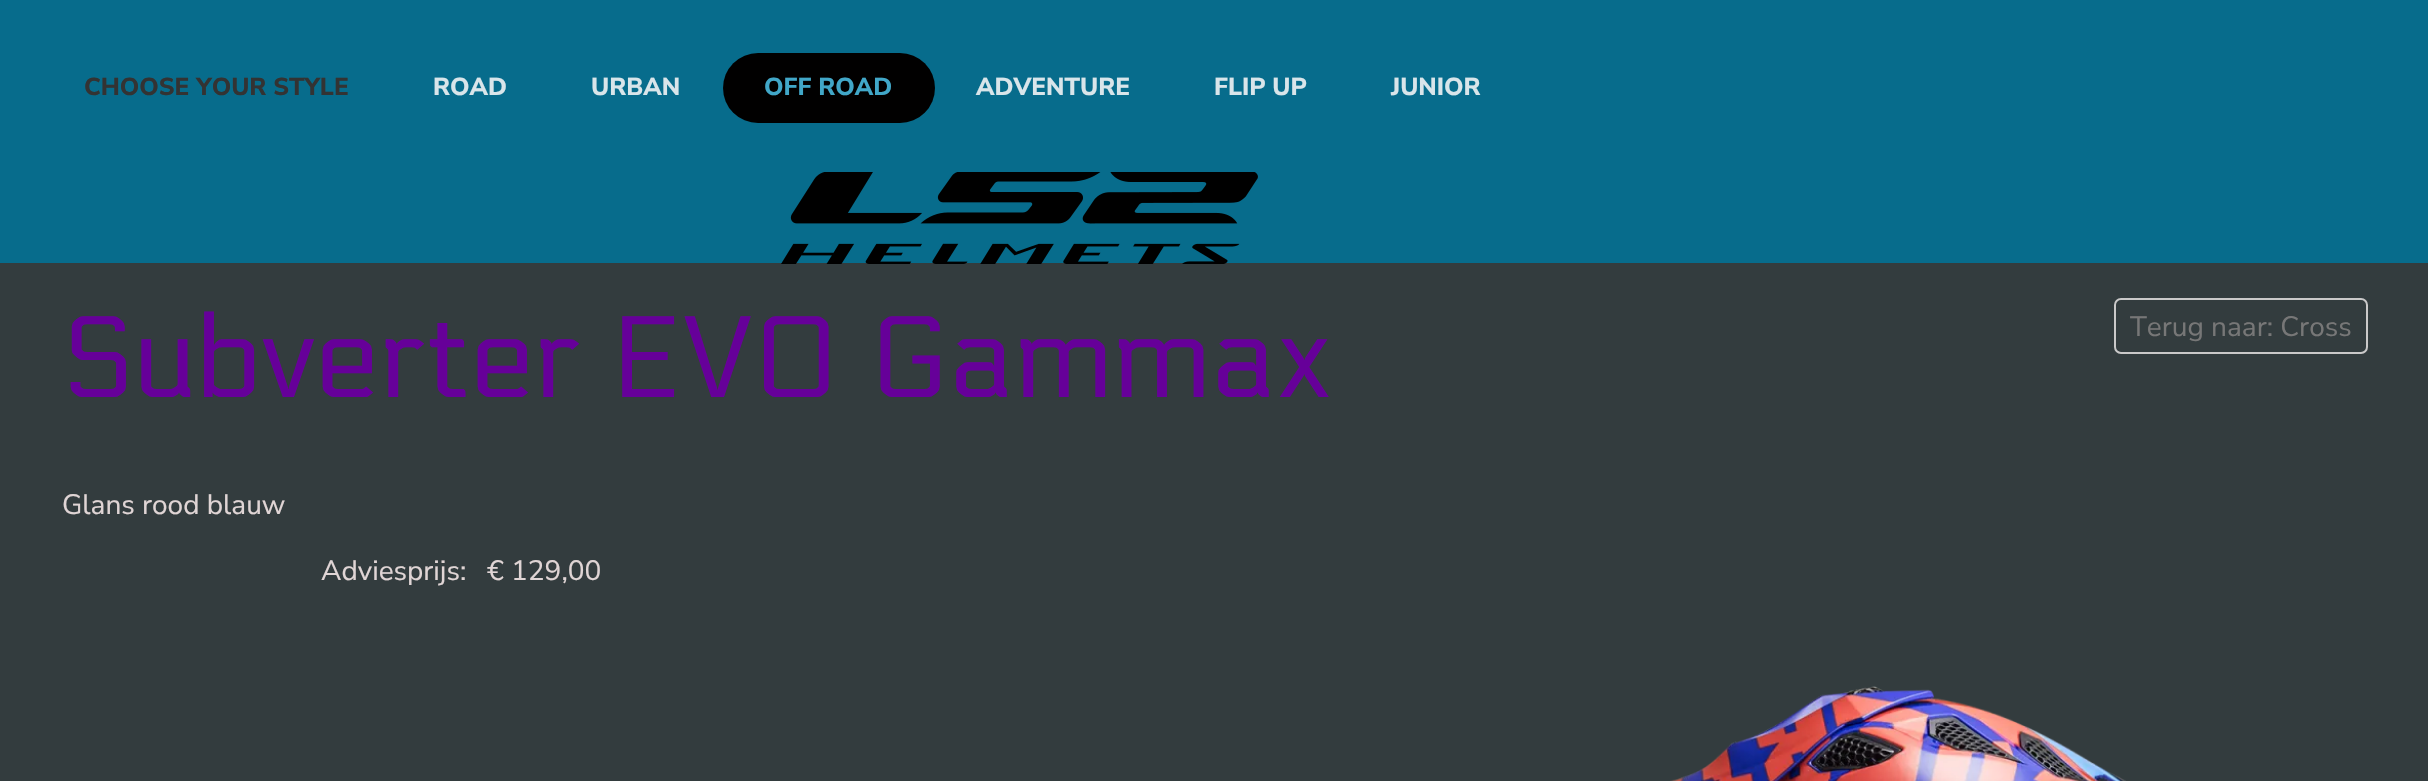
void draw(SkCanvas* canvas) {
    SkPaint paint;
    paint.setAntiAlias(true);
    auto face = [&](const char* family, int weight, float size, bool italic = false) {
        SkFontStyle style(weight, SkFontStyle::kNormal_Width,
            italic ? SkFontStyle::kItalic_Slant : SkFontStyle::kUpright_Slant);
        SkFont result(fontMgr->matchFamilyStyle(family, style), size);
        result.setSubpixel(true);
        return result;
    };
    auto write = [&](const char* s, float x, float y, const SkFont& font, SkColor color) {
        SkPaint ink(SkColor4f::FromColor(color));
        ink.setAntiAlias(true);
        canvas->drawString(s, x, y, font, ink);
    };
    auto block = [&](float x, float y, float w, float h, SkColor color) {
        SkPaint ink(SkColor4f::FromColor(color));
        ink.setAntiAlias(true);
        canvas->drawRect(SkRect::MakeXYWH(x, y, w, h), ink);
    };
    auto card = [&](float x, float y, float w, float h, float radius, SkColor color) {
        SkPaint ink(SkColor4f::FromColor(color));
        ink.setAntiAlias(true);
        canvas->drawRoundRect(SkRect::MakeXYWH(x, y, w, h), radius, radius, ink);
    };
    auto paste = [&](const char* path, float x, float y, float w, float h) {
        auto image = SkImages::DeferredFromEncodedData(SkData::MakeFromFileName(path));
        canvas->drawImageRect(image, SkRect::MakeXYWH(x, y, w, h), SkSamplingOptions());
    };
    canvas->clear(SkColorSetRGB(51, 60, 62));
    block(0, 0, 2428, 263, SkColorSetRGB(7, 108, 140));
    auto kFont1 = face("Nunito Sans", 800, 24.5f);
    write("CHOOSE YOUR STYLE", 84, 95, kFont1, SkColorSetRGB(51, 51, 51));
    write("ROAD", 433, 95, kFont1, SkColorSetRGB(217, 229, 234));
    write("URBAN", 591, 95, kFont1, SkColorSetRGB(217, 229, 234));
    card(723, 53, 212, 70, 35, SkColorSetRGB(1, 0, 0));
    write("OFF ROAD", 764, 95, kFont1, SkColorSetRGB(65, 167, 200));
    write("ADVENTURE", 976, 95, kFont1, SkColorSetRGB(217, 229, 234));
    write("FLIP UP", 1214, 95, kFont1, SkColorSetRGB(217, 229, 234));
    write("JUNIOR", 1391, 95, kFont1, SkColorSetRGB(217, 229, 234));
    paste("pic1.png", 781, 172, 477, 92);
    auto kFont2 = face("Electrolize", 400, 115.5f);
    write("Subverter EVO Gammax", 62, 397, kFont2, SkColorSetRGB(102, 0, 153));
    paint.setStyle(SkPaint::kStroke_Style);
    paint.setStrokeWidth(2);
    paint.setColor(SkColorSetRGB(202, 201, 201));
    canvas->drawRoundRect(SkRect::MakeXYWH(2115, 299, 252, 54), 6, 6, paint);
    auto kFont3 = face("Nunito Sans", 400, 28);
    write("Terug naar: Cross", 2130, 336, kFont3, SkColorSetRGB(119, 119, 119));
    write("Glans rood blauw", 62, 514, kFont3, SkColorSetRGB(224, 213, 213));
    write("Adviesprijs:", 321, 580, kFont3, SkColorSetRGB(224, 213, 213));
    write("€ 129,00", 487, 580, kFont3, SkColorSetRGB(224, 213, 213));
    paste("pic2.png", 1670, 686, 456, 95);
}
